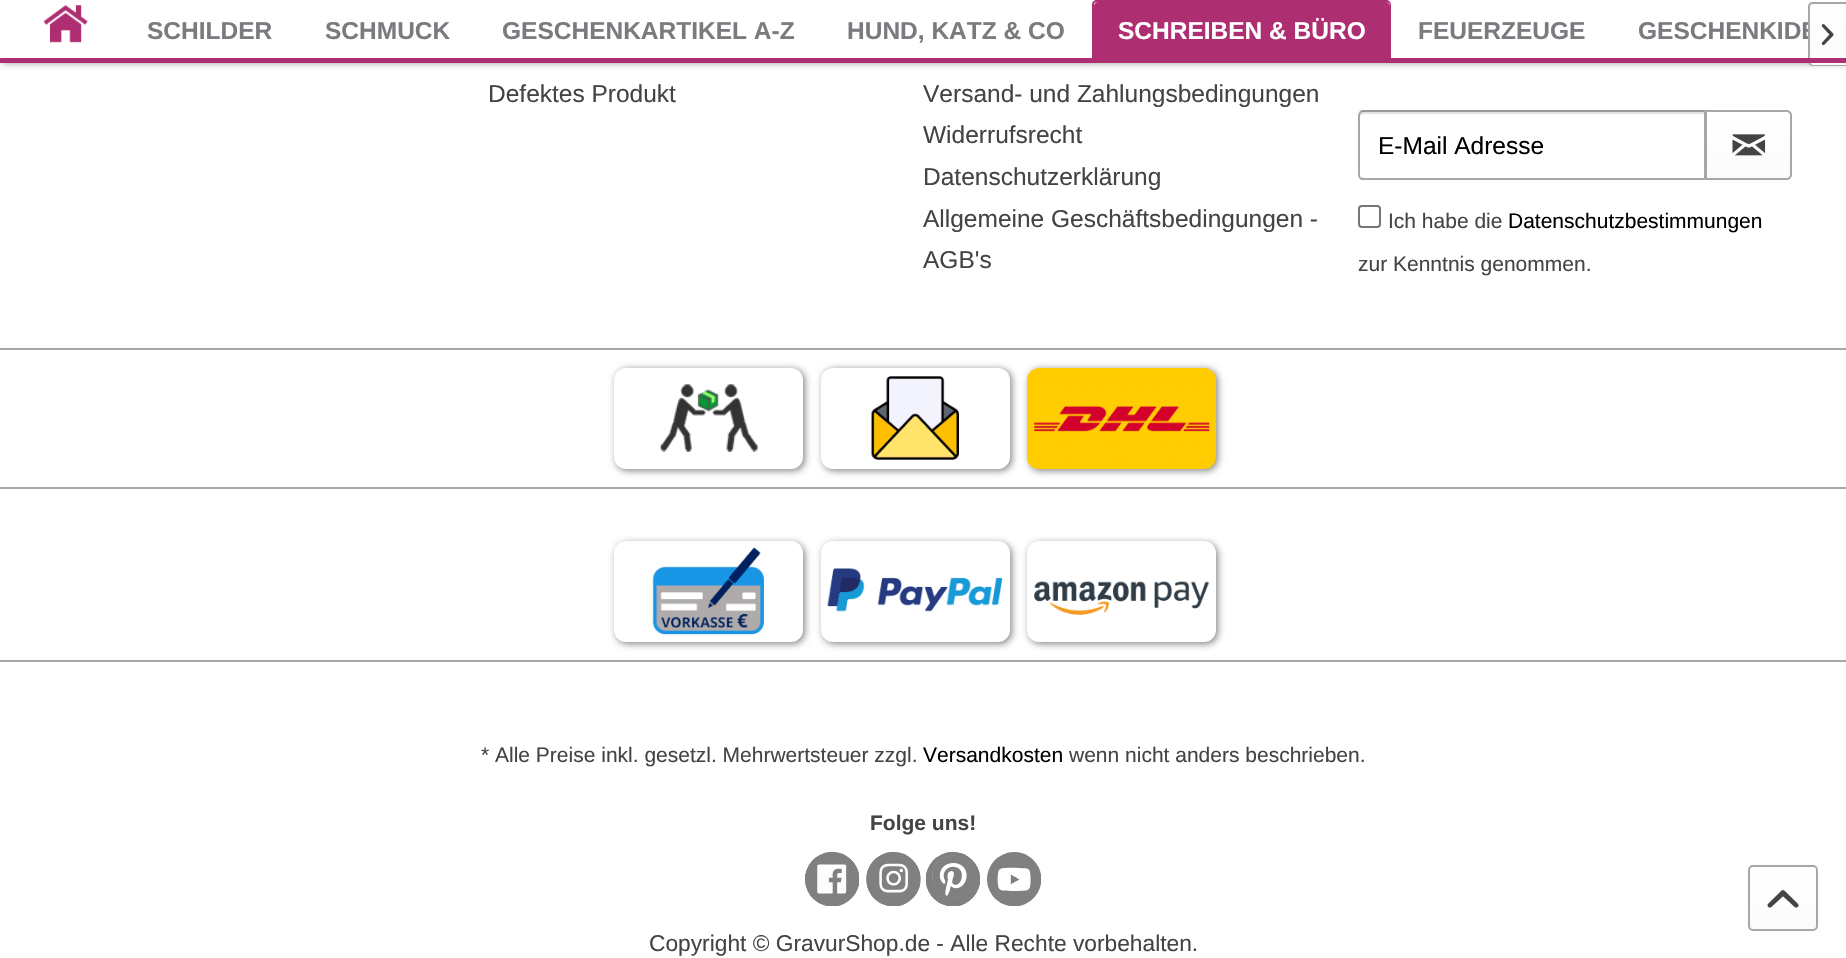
void draw(SkCanvas* canvas) {
    SkPaint paint;
    paint.setAntiAlias(true);
    auto face = [&](const char* family, int weight, float size, bool italic = false) {
        SkFontStyle style(weight, SkFontStyle::kNormal_Width,
            italic ? SkFontStyle::kItalic_Slant : SkFontStyle::kUpright_Slant);
        SkFont result(fontMgr->matchFamilyStyle(family, style), size);
        result.setSubpixel(true);
        return result;
    };
    auto write = [&](const char* s, float x, float y, const SkFont& font, SkColor color) {
        SkPaint ink(SkColor4f::FromColor(color));
        ink.setAntiAlias(true);
        canvas->drawString(s, x, y, font, ink);
    };
    auto block = [&](float x, float y, float w, float h, SkColor color) {
        SkPaint ink(SkColor4f::FromColor(color));
        ink.setAntiAlias(true);
        canvas->drawRect(SkRect::MakeXYWH(x, y, w, h), ink);
    };
    auto card = [&](float x, float y, float w, float h, float radius, SkColor color) {
        SkPaint ink(SkColor4f::FromColor(color));
        ink.setAntiAlias(true);
        canvas->drawRoundRect(SkRect::MakeXYWH(x, y, w, h), radius, radius, ink);
    };
    auto paste = [&](const char* path, float x, float y, float w, float h) {
        auto image = SkImages::DeferredFromEncodedData(SkData::MakeFromFileName(path));
        canvas->drawImageRect(image, SkRect::MakeXYWH(x, y, w, h), SkSamplingOptions());
    };
    canvas->clear(SK_ColorWHITE);
    paint.setColor(SkColorSetARGB(102, 0, 0, 0));
    paint.setMaskFilter(SkMaskFilter::MakeBlur(kNormal_SkBlurStyle, 3.5f));
    canvas->drawRect(SkRect::MakeXYWH(2, 0, 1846, 63), paint);
    paint.setMaskFilter(nullptr);
    block(0, 0, 1846, 58, SK_ColorWHITE);
    paste("pic1.png", 43, 5, 45, 38);
    auto kFont1 = face("Liberation Sans", 700, 24.5f);
    write("SCHILDER", 147, 39, kFont1, SkColorSetRGB(122, 122, 127));
    write("SCHMUCK", 325, 39, kFont1, SkColorSetRGB(122, 122, 127));
    write("GESCHENKARTIKEL A-Z", 502, 39, kFont1, SkColorSetRGB(122, 122, 127));
    write("HUND, KATZ & CO", 847, 39, kFont1, SkColorSetRGB(122, 122, 127));
    paint.setColor(SkColorSetRGB(174, 46, 114));
    canvas->drawPath(SkPathBuilder().moveTo(1098, 2).lineTo(1386, 2).cubicTo(1388, 2, 1390, 4, 1390, 6).lineTo(1390, 58).lineTo(1094, 58).lineTo(1094, 6).cubicTo(1094, 4, 1096, 2, 1098, 2).close().detach(), paint);
    canvas->drawPath(SkPathBuilder(SkPathFillType::kEvenOdd).moveTo(1097, 0).lineTo(1386, 0).cubicTo(1389, 0, 1391, 2, 1391, 5).lineTo(1391, 58).lineTo(1092, 58).lineTo(1092, 5).cubicTo(1092, 2, 1094, 0, 1097, 0).close().moveTo(1097, 2).lineTo(1386, 2).cubicTo(1388, 2, 1390, 3, 1390, 5).lineTo(1390, 58).lineTo(1094, 58).lineTo(1094, 5).cubicTo(1094, 3, 1095, 2, 1097, 2).close().detach(), paint);
    write("SCHREIBEN & BÜRO", 1118, 39, kFont1, SK_ColorWHITE);
    write("FEUERZEUGE", 1418, 39, kFont1, SkColorSetRGB(122, 122, 127));
    write("GESCHENKIDE", 1638, 39, kFont1, SkColorSetRGB(122, 122, 127));
    {
        const SkColor colors[] = {SK_ColorWHITE, SkColorSetRGB(251, 251, 251)};
        const float stops[] = {0, 1};
        const SkPoint ends[] = {{1828, 3.5f}, {1828, 65}};
        paint.setShader(SkGradientShader::MakeLinear(ends, colors, stops, 2, SkTileMode::kClamp));
        paint.setAlpha(255);
    }
    canvas->drawPath(SkPathBuilder().moveTo(1814, 4).lineTo(1846, 4).lineTo(1846, 65).lineTo(1814, 65).cubicTo(1812, 65, 1810, 63, 1810, 61).lineTo(1810, 8).cubicTo(1810, 6, 1812, 4, 1814, 4).close().detach(), paint);
    paint.setShader(nullptr);
    paint.setColor(SkColorSetRGB(167, 167, 167));
    canvas->drawPath(SkPathBuilder(SkPathFillType::kEvenOdd).moveTo(1813, 2).lineTo(1846, 2).lineTo(1846, 66).lineTo(1813, 66).cubicTo(1810, 66, 1808, 64, 1808, 61).lineTo(1808, 7).cubicTo(1808, 4, 1810, 2, 1813, 2).close().moveTo(1813, 4).lineTo(1846, 4).lineTo(1846, 65).lineTo(1813, 65).cubicTo(1811, 65, 1810, 63, 1810, 61).lineTo(1810, 7).cubicTo(1810, 5, 1811, 4, 1813, 4).close().detach(), paint);
    paste("pic2.png", 1821, 24, 13, 21);
    block(0, 58, 1846, 5, SkColorSetRGB(174, 46, 114));
    block(0, 348, 1846, 2, SkColorSetRGB(167, 167, 167));
    auto kFont2 = face("Liberation Sans", 400, 24.5f);
    write("Defektes Produkt", 488, 102, kFont2, SkColorSetRGB(68, 68, 68));
    write("Versand- und Zahlungsbedingungen", 923, 102, kFont2, SkColorSetRGB(68, 68, 68));
    write("Widerrufsrecht", 923, 143, kFont2, SkColorSetRGB(68, 68, 68));
    write("Datenschutzerklärung", 923, 185, kFont2, SkColorSetRGB(68, 68, 68));
    write("Allgemeine Geschäftsbedingungen -", 923, 227, kFont2, SkColorSetRGB(68, 68, 68));
    write("AGB's", 923, 268, kFont2, SkColorSetRGB(68, 68, 68));
    paint.setColor(SkColorSetRGB(226, 226, 226));
    canvas->drawPath(SkPathBuilder().moveTo(1363, 114).lineTo(1704, 114).lineTo(1704, 179).lineTo(1705, 179).lineTo(1705, 112).lineTo(1364, 112).cubicTo(1361, 112, 1360, 114, 1360, 117).cubicTo(1360, 115, 1361, 114, 1363, 114).close().detach(), paint);
    paint.setColor(SkColorSetRGB(154, 154, 154));
    canvas->drawPath(SkPathBuilder().moveTo(1363, 112).lineTo(1361, 113).lineTo(1359, 112).lineTo(1362, 110).lineTo(1706, 110).lineTo(1704, 112).close().detach(), paint);
    paint.setColor(SkColorSetRGB(167, 167, 167));
    canvas->drawPath(SkPathBuilder().moveTo(1706, 110).lineTo(1706, 180).lineTo(1704, 178).lineTo(1704, 112).close().detach(), paint);
    canvas->drawPath(SkPathBuilder().moveTo(1706, 180).lineTo(1704, 178).lineTo(1363, 178).lineTo(1361, 177).lineTo(1360, 179).cubicTo(1360, 180, 1362, 180, 1363, 180).close().detach(), paint);
    canvas->drawPath(SkPathBuilder().moveTo(1358, 116).lineTo(1358, 175).cubicTo(1358, 177, 1359, 178, 1360, 179).lineTo(1361, 177).cubicTo(1360, 177, 1360, 176, 1360, 175).lineTo(1360, 116).lineTo(1361, 113).lineTo(1359, 112).cubicTo(1359, 113, 1358, 114, 1358, 116).close().detach(), paint);
    write("E-Mail Adresse", 1378, 154, kFont2, SK_ColorBLACK);
    {
        const SkColor colors[] = {SK_ColorWHITE, SkColorSetRGB(251, 251, 251)};
        const float stops[] = {0, 1};
        const SkPoint ends[] = {{1748, 112}, {1748, 179}};
        paint.setShader(SkGradientShader::MakeLinear(ends, colors, stops, 2, SkTileMode::kClamp));
        paint.setAlpha(255);
    }
    canvas->drawPath(SkPathBuilder().moveTo(1706, 112).lineTo(1786, 112).cubicTo(1788, 112, 1790, 114, 1790, 116).lineTo(1790, 175).cubicTo(1790, 177, 1788, 179, 1786, 179).lineTo(1706, 179).close().detach(), paint);
    paint.setStyle(SkPaint::kStroke_Style);
    paint.setStrokeWidth(2);
    paint.setShader(nullptr);
    paint.setColor(SkColorSetRGB(167, 167, 167));
    canvas->drawPath(SkPathBuilder().moveTo(1706, 111).lineTo(1787, 111).cubicTo(1789, 111, 1791, 113, 1791, 115).lineTo(1791, 175).cubicTo(1791, 177, 1789, 179, 1787, 179).lineTo(1706, 179).close().detach(), paint);
    paste("pic3.png", 1732, 134, 34, 22);
    paint.setColor(SkColorSetRGB(118, 118, 118));
    canvas->drawRoundRect(SkRect::MakeXYWH(1359, 206, 21, 21), 3, 3, paint);
    auto kFont3 = face("Liberation Sans", 400, 21);
    write("Ich habe die", 1388, 228, kFont3, SkColorSetRGB(68, 68, 68));
    write("Datenschutzbestimmungen", 1508, 228, kFont3, SK_ColorBLACK);
    write("zur Kenntnis genommen.", 1358, 271, kFont3, SkColorSetRGB(68, 68, 68));
    block(0, 487, 1846, 2, SkColorSetRGB(167, 167, 167));
    paint.setStyle(SkPaint::kFill_Style);
    paint.setColor(SkColorSetRGB(136, 136, 136));
    paint.setMaskFilter(SkMaskFilter::MakeBlur(kNormal_SkBlurStyle, 3.5f));
    canvas->drawRoundRect(SkRect::MakeXYWH(616, 369, 189, 102), 12, 12, paint);
    paint.setMaskFilter(nullptr);
    card(614, 368, 189, 101, 12, SK_ColorWHITE);
    paste("pic4.png", 660, 384, 98, 68);
    paint.setMaskFilter(SkMaskFilter::MakeBlur(kNormal_SkBlurStyle, 3.5f));
    canvas->drawRoundRect(SkRect::MakeXYWH(823, 369, 189, 102), 12, 12, paint);
    paint.setMaskFilter(nullptr);
    card(821, 368, 189, 101, 12, SK_ColorWHITE);
    paste("pic5.png", 871, 376, 88, 84);
    paint.setMaskFilter(SkMaskFilter::MakeBlur(kNormal_SkBlurStyle, 3.5f));
    canvas->drawRoundRect(SkRect::MakeXYWH(1029, 369, 189, 102), 12, 12, paint);
    paint.setMaskFilter(nullptr);
    card(1027, 368, 189, 101, 12, SkColorSetRGB(255, 204, 0));
    paste("pic6.png", 1034, 380, 176, 82);
    block(0, 660, 1846, 2, SkColorSetRGB(167, 167, 167));
    paint.setMaskFilter(SkMaskFilter::MakeBlur(kNormal_SkBlurStyle, 3.5f));
    canvas->drawRoundRect(SkRect::MakeXYWH(616, 543, 189, 101), 12, 12, paint);
    paint.setMaskFilter(nullptr);
    card(614, 541, 189, 101, 12, SK_ColorWHITE);
    paste("pic7.png", 652, 547, 112, 88);
    paint.setMaskFilter(SkMaskFilter::MakeBlur(kNormal_SkBlurStyle, 3.5f));
    canvas->drawRoundRect(SkRect::MakeXYWH(823, 543, 189, 101), 12, 12, paint);
    paint.setMaskFilter(nullptr);
    card(821, 541, 189, 101, 12, SK_ColorWHITE);
    paste("pic8.png", 827, 568, 176, 44);
    paint.setMaskFilter(SkMaskFilter::MakeBlur(kNormal_SkBlurStyle, 3.5f));
    canvas->drawRoundRect(SkRect::MakeXYWH(1029, 543, 189, 101), 12, 12, paint);
    paint.setMaskFilter(nullptr);
    card(1027, 541, 189, 101, 12, SK_ColorWHITE);
    paste("pic9.png", 1034, 581, 176, 34);
    write("* Alle Preise inkl. gesetzl. Mehrwertsteuer zzgl.", 481, 762, kFont3, SkColorSetRGB(68, 68, 68));
    write("Versandkosten", 923, 762, kFont3, SK_ColorBLACK);
    write("wenn nicht anders beschrieben.", 1069, 762, kFont3, SkColorSetRGB(68, 68, 68));
    auto kFont4 = face("Liberation Sans", 700, 21);
    write("Folge uns!", 870, 830, kFont4, SkColorSetRGB(68, 68, 68));
    paste("pic10.png", 805, 852, 54, 54);
    paste("pic11.png", 866, 852, 55, 54);
    paste("pic12.png", 926, 852, 54, 54);
    paste("pic13.png", 987, 852, 54, 54);
    auto kFont5 = face("Liberation Sans", 400, 22.75f);
    write("Copyright © GravurShop.de - Alle Rechte vorbehalten.", 649, 951, kFont5, SkColorSetRGB(68, 68, 68));
    {
        const SkColor colors[] = {SK_ColorWHITE, SkColorSetRGB(251, 251, 251)};
        const float stops[] = {0, 1};
        const SkPoint ends[] = {{1783, 866}, {1783, 929}};
        paint.setShader(SkGradientShader::MakeLinear(ends, colors, stops, 2, SkTileMode::kClamp));
        paint.setAlpha(255);
    }
    canvas->drawRoundRect(SkRect::MakeXYWH(1750, 866, 67, 63), 4, 4, paint);
    paint.setStyle(SkPaint::kStroke_Style);
    paint.setShader(nullptr);
    paint.setColor(SkColorSetRGB(167, 167, 167));
    canvas->drawRoundRect(SkRect::MakeXYWH(1749, 866, 68, 64), 4, 4, paint);
    paste("pic14.png", 1767, 890, 32, 18);
}
